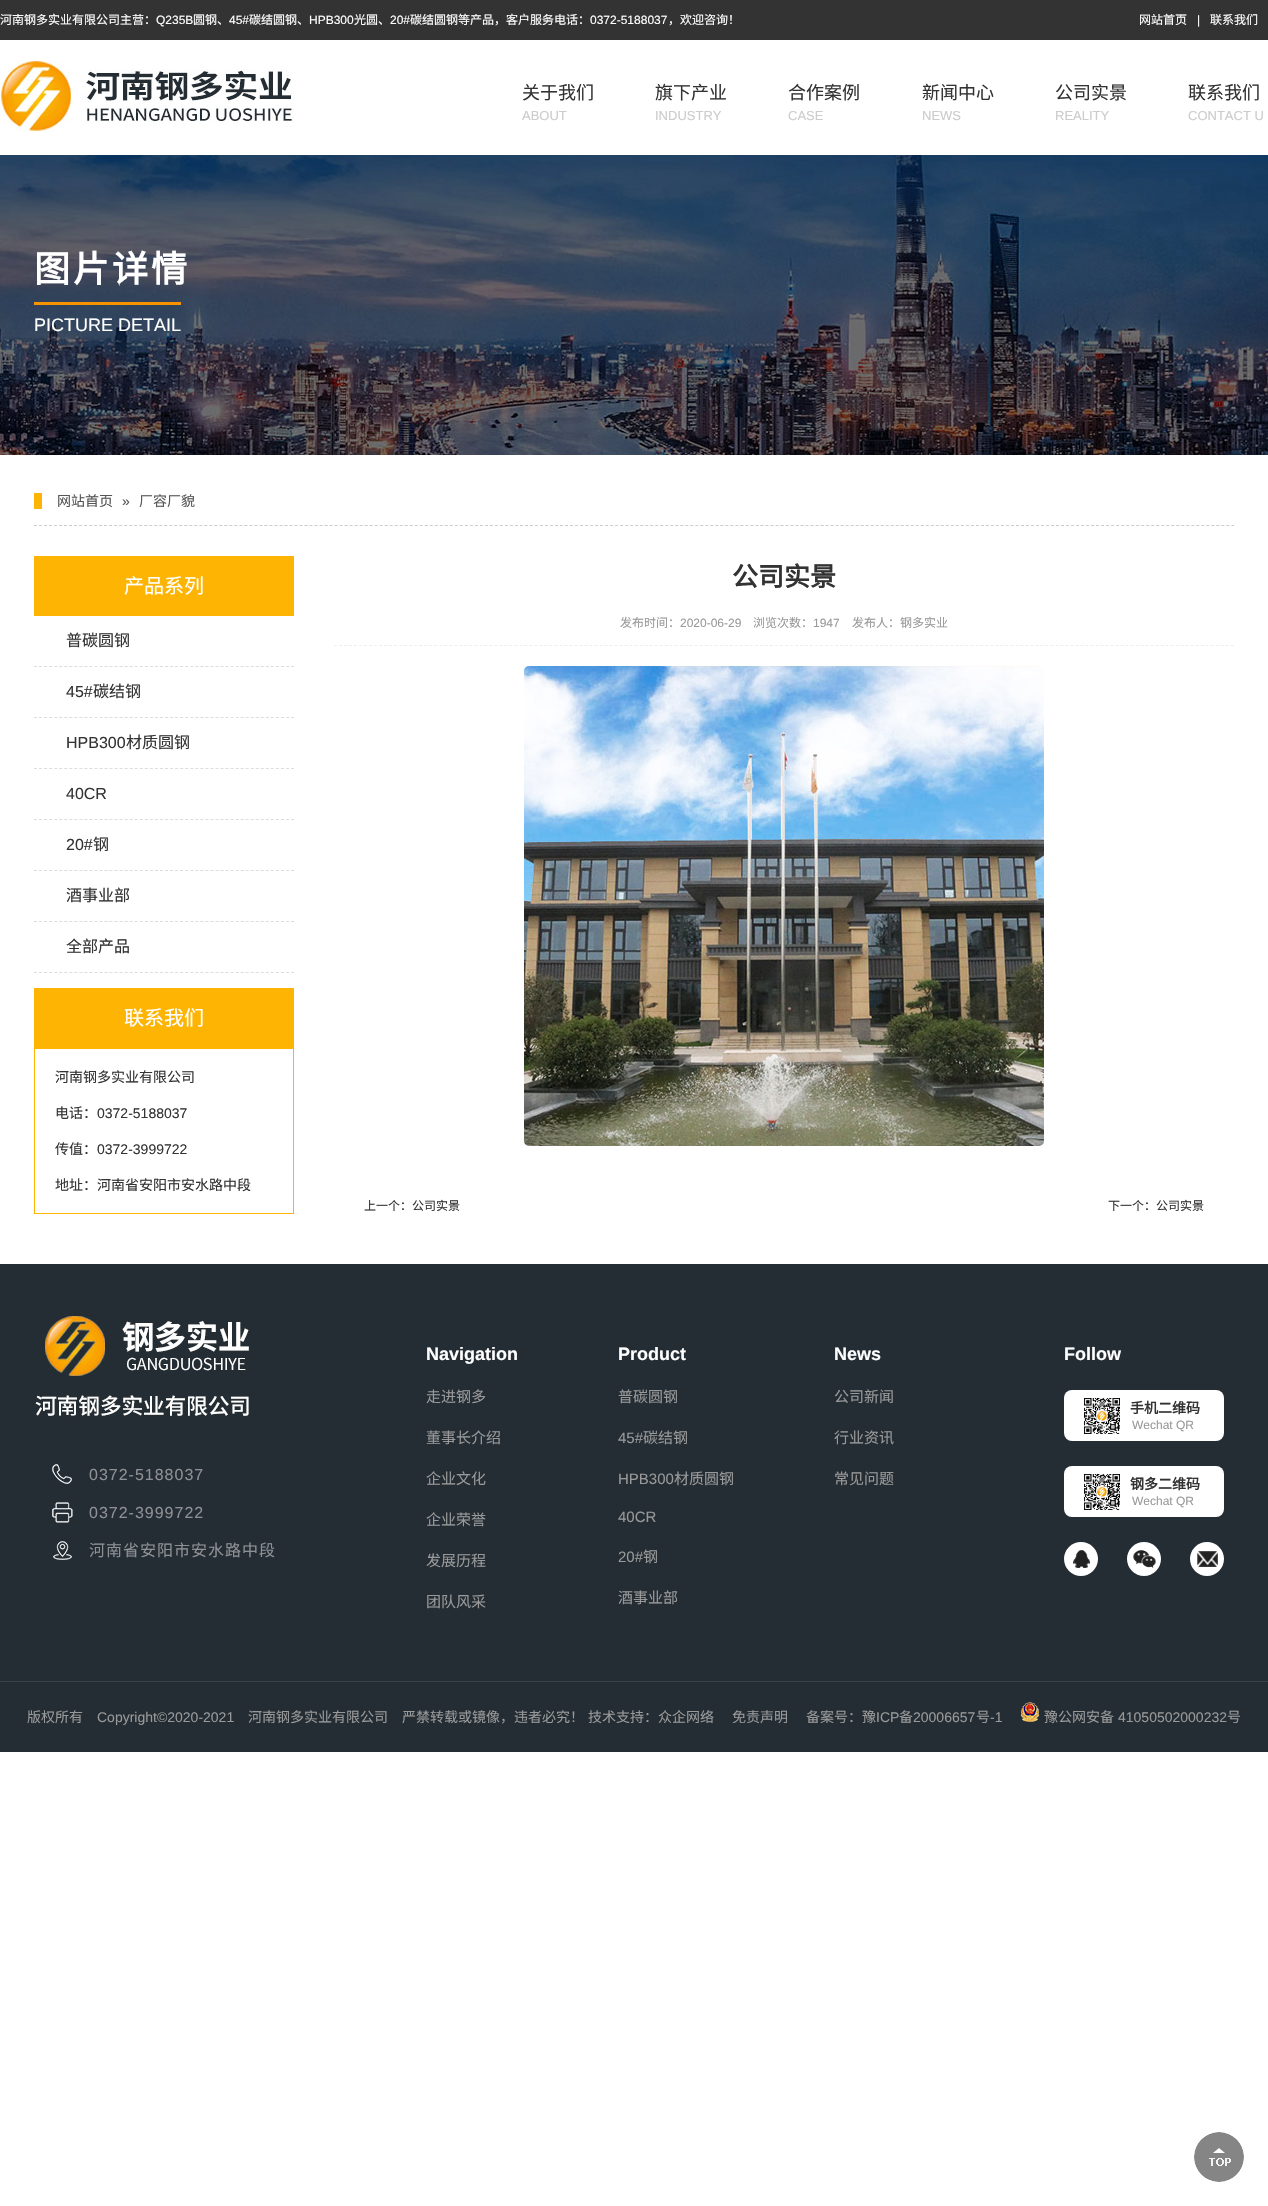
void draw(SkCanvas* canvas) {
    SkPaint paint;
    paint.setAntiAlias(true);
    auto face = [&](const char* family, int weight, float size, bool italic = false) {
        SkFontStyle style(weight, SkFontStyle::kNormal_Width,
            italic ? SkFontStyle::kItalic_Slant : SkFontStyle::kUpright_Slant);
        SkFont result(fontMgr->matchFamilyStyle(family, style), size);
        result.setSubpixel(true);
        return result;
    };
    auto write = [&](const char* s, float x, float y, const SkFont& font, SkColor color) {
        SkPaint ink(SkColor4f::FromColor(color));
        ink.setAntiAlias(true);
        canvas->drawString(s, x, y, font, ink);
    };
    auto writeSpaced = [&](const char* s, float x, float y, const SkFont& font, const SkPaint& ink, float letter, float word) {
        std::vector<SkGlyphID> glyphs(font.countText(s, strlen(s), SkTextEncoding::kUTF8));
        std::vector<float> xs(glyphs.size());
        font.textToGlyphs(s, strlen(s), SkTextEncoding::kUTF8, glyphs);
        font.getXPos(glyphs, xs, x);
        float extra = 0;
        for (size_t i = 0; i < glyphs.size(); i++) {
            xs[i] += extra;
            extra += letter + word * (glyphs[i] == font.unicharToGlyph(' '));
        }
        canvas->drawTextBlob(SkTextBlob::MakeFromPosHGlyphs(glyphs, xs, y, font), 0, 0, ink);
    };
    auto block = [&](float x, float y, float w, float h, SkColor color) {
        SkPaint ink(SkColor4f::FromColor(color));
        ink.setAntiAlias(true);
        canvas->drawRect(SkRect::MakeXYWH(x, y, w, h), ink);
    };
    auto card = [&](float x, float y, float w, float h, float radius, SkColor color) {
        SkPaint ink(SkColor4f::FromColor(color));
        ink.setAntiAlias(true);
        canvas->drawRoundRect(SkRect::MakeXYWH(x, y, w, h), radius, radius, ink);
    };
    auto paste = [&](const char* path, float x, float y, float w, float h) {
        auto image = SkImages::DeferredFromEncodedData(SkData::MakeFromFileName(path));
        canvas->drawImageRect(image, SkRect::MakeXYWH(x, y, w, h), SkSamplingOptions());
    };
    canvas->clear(SK_ColorWHITE);
    block(0, 0, 1268, 40, SkColorSetRGB(51, 51, 51));
    auto kFont1 = face("Noto Sans CJK SC", 400, 12);
    write("河南钢多实业有限公司主营：", 0, 24, kFont1, SK_ColorWHITE);
    auto kFont2 = face("Liberation Sans", 400, 12);
    write("Q235B", 156, 24, kFont2, SK_ColorWHITE);
    write("圆钢、", 193, 24, kFont1, SK_ColorWHITE);
    write("45#", 229, 24, kFont2, SK_ColorWHITE);
    write("碳结圆钢、", 249, 24, kFont1, SK_ColorWHITE);
    write("HPB300", 309, 24, kFont2, SK_ColorWHITE);
    write("光圆、", 354, 24, kFont1, SK_ColorWHITE);
    write("20#", 390, 24, kFont2, SK_ColorWHITE);
    write("碳结圆钢等产品，客户服务电话：", 410, 24, kFont1, SK_ColorWHITE);
    write("0372-5188037", 590, 24, kFont2, SK_ColorWHITE);
    write("，欢迎咨询！", 668, 24, kFont1, SK_ColorWHITE);
    write("网站首页", 1139, 24, kFont1, SK_ColorWHITE);
    write("|", 1197, 24, kFont2, SK_ColorWHITE);
    write("联系我们", 1210, 24, kFont1, SK_ColorWHITE);
    paste("pic1.png", 0, 60, 294, 72);
    auto kFont3 = face("Noto Sans CJK SC", 400, 18);
    write("关于我们", 522, 99, kFont3, SkColorSetRGB(51, 51, 51));
    auto kFont4 = face("Liberation Sans", 400, 13);
    write("ABOUT", 522, 120, kFont4, SkColorSetRGB(204, 204, 204));
    write("旗下产业", 655, 99, kFont3, SkColorSetRGB(51, 51, 51));
    write("INDUSTRY", 655, 120, kFont4, SkColorSetRGB(204, 204, 204));
    write("合作案例", 788, 99, kFont3, SkColorSetRGB(51, 51, 51));
    write("CASE", 788, 120, kFont4, SkColorSetRGB(204, 204, 204));
    write("新闻中心", 922, 99, kFont3, SkColorSetRGB(51, 51, 51));
    write("NEWS", 922, 120, kFont4, SkColorSetRGB(204, 204, 204));
    write("公司实景", 1055, 99, kFont3, SkColorSetRGB(51, 51, 51));
    write("REALITY", 1055, 120, kFont4, SkColorSetRGB(204, 204, 204));
    write("联系我们", 1188, 99, kFont3, SkColorSetRGB(51, 51, 51));
    write("CONTACT U", 1188, 120, kFont4, SkColorSetRGB(204, 204, 204));
    paste("pic2.png", 0, 155, 1268, 300);
    auto kFont5 = face("Noto Sans CJK SC", 700, 36);
    paint.setColor(SK_ColorWHITE);
    writeSpaced("图片详情", 34, 282, kFont5, paint, 3, 0);
    block(34, 302, 147, 3, SkColorSetRGB(248, 147, 0));
    auto kFont6 = face("Liberation Sans", 400, 18);
    write("PICTURE DETAIL", 34, 331, kFont6, SK_ColorWHITE);
    paint.setStyle(SkPaint::kStroke_Style);
    paint.setStrokeWidth(1);
    paint.setColor(SkColorSetRGB(204, 204, 204));
    paint.setPathEffect(SkDashPathEffect::Make({{3, 2.01f}}, 0));
    canvas->drawPath(SkPathBuilder().moveTo(34, 525.5f).lineTo(1234, 525.5f).detach(), paint);
    paint.setPathEffect(nullptr);
    block(34, 493, 8, 16, SkColorSetRGB(254, 180, 3));
    auto kFont7 = face("Noto Sans CJK SC", 400, 14);
    write("网站首页", 57, 506, kFont7, SkColorSetRGB(85, 85, 85));
    auto kFont8 = face("Liberation Sans", 400, 14);
    write("»", 122, 506, kFont8, SkColorSetRGB(85, 85, 85));
    write("厂容厂貌", 139, 506, kFont7, SkColorSetRGB(85, 85, 85));
    block(34, 556, 260, 60, SkColorSetRGB(254, 180, 3));
    auto kFont9 = face("Noto Sans CJK SC", 400, 20);
    write("产品系列", 124, 593, kFont9, SK_ColorWHITE);
    paint.setColor(SkColorSetRGB(221, 221, 221));
    paint.setPathEffect(SkDashPathEffect::Make({{3, 2.04f}}, 0));
    canvas->drawPath(SkPathBuilder().moveTo(34, 666.5f).lineTo(294, 666.5f).detach(), paint);
    paint.setPathEffect(nullptr);
    auto kFont10 = face("Noto Sans CJK SC", 400, 16);
    write("普碳圆钢", 66, 646, kFont10, SkColorSetRGB(51, 51, 51));
    paint.setPathEffect(SkDashPathEffect::Make({{3, 2.04f}}, 0));
    canvas->drawPath(SkPathBuilder().moveTo(34, 717.5f).lineTo(294, 717.5f).detach(), paint);
    paint.setPathEffect(nullptr);
    auto kFont11 = face("Liberation Sans", 400, 16);
    write("45#", 66, 697, kFont11, SkColorSetRGB(51, 51, 51));
    write("碳结钢", 93, 697, kFont10, SkColorSetRGB(51, 51, 51));
    paint.setPathEffect(SkDashPathEffect::Make({{3, 2.04f}}, 0));
    canvas->drawPath(SkPathBuilder().moveTo(34, 768.5f).lineTo(294, 768.5f).detach(), paint);
    paint.setPathEffect(nullptr);
    write("HPB300", 66, 748, kFont11, SkColorSetRGB(51, 51, 51));
    write("材质圆钢", 126, 748, kFont10, SkColorSetRGB(51, 51, 51));
    paint.setPathEffect(SkDashPathEffect::Make({{3, 2.04f}}, 0));
    canvas->drawPath(SkPathBuilder().moveTo(34, 819.5f).lineTo(294, 819.5f).detach(), paint);
    paint.setPathEffect(nullptr);
    write("40CR", 66, 799, kFont11, SkColorSetRGB(51, 51, 51));
    paint.setPathEffect(SkDashPathEffect::Make({{3, 2.04f}}, 0));
    canvas->drawPath(SkPathBuilder().moveTo(34, 870.5f).lineTo(294, 870.5f).detach(), paint);
    paint.setPathEffect(nullptr);
    write("20#", 66, 850, kFont11, SkColorSetRGB(51, 51, 51));
    write("钢", 93, 850, kFont10, SkColorSetRGB(51, 51, 51));
    paint.setPathEffect(SkDashPathEffect::Make({{3, 2.04f}}, 0));
    canvas->drawPath(SkPathBuilder().moveTo(34, 921.5f).lineTo(294, 921.5f).detach(), paint);
    paint.setPathEffect(nullptr);
    write("酒事业部", 66, 901, kFont10, SkColorSetRGB(51, 51, 51));
    paint.setPathEffect(SkDashPathEffect::Make({{3, 2.04f}}, 0));
    canvas->drawPath(SkPathBuilder().moveTo(34, 972.5f).lineTo(294, 972.5f).detach(), paint);
    paint.setPathEffect(nullptr);
    write("全部产品", 66, 952, kFont10, SkColorSetRGB(51, 51, 51));
    block(34, 988, 260, 60, SkColorSetRGB(254, 180, 3));
    write("联系我们", 124, 1025, kFont9, SK_ColorWHITE);
    paint.setColor(SkColorSetRGB(254, 180, 3));
    canvas->drawRect(SkRect::MakeXYWH(34.5f, 1048.5f, 259, 165), paint);
    write("河南钢多实业有限公司", 55, 1082, kFont7, SkColorSetRGB(51, 51, 51));
    write("电话：", 55, 1118, kFont7, SkColorSetRGB(51, 51, 51));
    write("0372-5188037", 97, 1118, kFont8, SkColorSetRGB(51, 51, 51));
    write("传值：", 55, 1154, kFont7, SkColorSetRGB(51, 51, 51));
    write("0372-3999722", 97, 1154, kFont8, SkColorSetRGB(51, 51, 51));
    write("地址：河南省安阳市安水路中段", 55, 1190, kFont7, SkColorSetRGB(51, 51, 51));
    auto kFont12 = face("Noto Sans CJK SC", 700, 26);
    write("公司实景", 732, 586, kFont12, SkColorSetRGB(51, 51, 51));
    paint.setColor(SkColorSetRGB(238, 238, 238));
    paint.setPathEffect(SkDashPathEffect::Make({{3, 2.01f}}, 0));
    canvas->drawPath(SkPathBuilder().moveTo(334, 645.5f).lineTo(1234, 645.5f).detach(), paint);
    paint.setPathEffect(nullptr);
    write("发布时间：", 620, 627, kFont1, SkColorSetRGB(153, 153, 153));
    write("2020-06-29", 680, 627, kFont2, SkColorSetRGB(153, 153, 153));
    write("浏览次数：", 753, 627, kFont1, SkColorSetRGB(153, 153, 153));
    write("1947", 813, 627, kFont2, SkColorSetRGB(153, 153, 153));
    write("发布人：钢多实业", 852, 627, kFont1, SkColorSetRGB(153, 153, 153));
    paste("pic3.png", 524, 666, 520, 480);
    write("上一个：公司实景", 364, 1210, kFont1, SkColorSetRGB(51, 51, 51));
    write("下一个：公司实景", 1108, 1210, kFont1, SkColorSetRGB(51, 51, 51));
    block(0, 1264, 1268, 417, SkColorSetRGB(36, 45, 52));
    paste("pic4.png", 34, 1314, 216, 104);
    paste("pic5.png", 52, 1464, 20, 20);
    paint.setStyle(SkPaint::kFill_Style);
    paint.setColor(SkColorSetRGB(143, 144, 148));
    writeSpaced("0372-5188037", 89, 1480, kFont11, paint, 1, 0);
    paste("pic6.png", 52, 1502, 21, 21);
    writeSpaced("0372-3999722", 89, 1518, kFont11, paint, 1, 0);
    paste("pic7.png", 53, 1541, 19, 19);
    writeSpaced("河南省安阳市安水路中段", 89, 1556, kFont10, paint, 1, 0);
    auto kFont13 = face("Liberation Sans", 700, 18);
    write("Navigation", 426, 1360, kFont13, SK_ColorWHITE);
    auto kFont14 = face("Noto Sans CJK SC", 400, 15);
    write("走进钢多", 426, 1402, kFont14, SkColorSetRGB(153, 153, 153));
    write("董事长介绍", 426, 1443, kFont14, SkColorSetRGB(153, 153, 153));
    write("企业文化", 426, 1484, kFont14, SkColorSetRGB(153, 153, 153));
    write("企业荣誉", 426, 1525, kFont14, SkColorSetRGB(153, 153, 153));
    write("发展历程", 426, 1566, kFont14, SkColorSetRGB(153, 153, 153));
    write("团队风采", 426, 1607, kFont14, SkColorSetRGB(153, 153, 153));
    write("Product", 618, 1360, kFont13, SK_ColorWHITE);
    write("普碳圆钢", 618, 1402, kFont14, SkColorSetRGB(153, 153, 153));
    auto kFont15 = face("Liberation Sans", 400, 15);
    write("45#", 618, 1443, kFont15, SkColorSetRGB(153, 153, 153));
    write("碳结钢", 643, 1443, kFont14, SkColorSetRGB(153, 153, 153));
    write("HPB300", 618, 1484, kFont15, SkColorSetRGB(153, 153, 153));
    write("材质圆钢", 674, 1484, kFont14, SkColorSetRGB(153, 153, 153));
    write("40CR", 618, 1522, kFont15, SkColorSetRGB(153, 153, 153));
    write("20#", 618, 1562, kFont15, SkColorSetRGB(153, 153, 153));
    write("钢", 643, 1562, kFont14, SkColorSetRGB(153, 153, 153));
    write("酒事业部", 618, 1603, kFont14, SkColorSetRGB(153, 153, 153));
    write("News", 834, 1360, kFont13, SK_ColorWHITE);
    write("公司新闻", 834, 1402, kFont14, SkColorSetRGB(153, 153, 153));
    write("行业资讯", 834, 1443, kFont14, SkColorSetRGB(153, 153, 153));
    write("常见问题", 834, 1484, kFont14, SkColorSetRGB(153, 153, 153));
    write("Follow", 1064, 1360, kFont13, SK_ColorWHITE);
    card(1064, 1390, 160, 51, 8, SK_ColorWHITE);
    paste("pic8.png", 1084, 1398, 36, 36);
    auto kFont16 = face("Noto Sans CJK SC", 700, 14);
    write("手机二维码", 1130, 1413, kFont16, SkColorSetRGB(51, 51, 51));
    write("Wechat QR", 1132, 1429, kFont2, SkColorSetRGB(153, 153, 153));
    card(1064, 1466, 160, 51, 8, SK_ColorWHITE);
    paste("pic9.png", 1084, 1474, 36, 36);
    write("钢多二维码", 1130, 1489, kFont16, SkColorSetRGB(51, 51, 51));
    write("Wechat QR", 1132, 1505, kFont2, SkColorSetRGB(153, 153, 153));
    paint.setColor(SK_ColorWHITE);
    canvas->drawCircle(1081, 1559, 17, paint);
    paste("pic10.png", 1073, 1550, 17, 18);
    canvas->drawCircle(1144, 1559, 17, paint);
    paste("pic11.png", 1133, 1550, 23, 18);
    canvas->drawCircle(1207, 1559, 17, paint);
    paste("pic12.png", 1197, 1551, 21, 16);
    block(0, 1682, 1268, 70, SkColorSetRGB(36, 45, 52));
    block(0, 1681, 1268, 1, SkColorSetRGB(58, 66, 73));
    write("版权所有", 27, 1722, kFont7, SkColorSetRGB(153, 153, 153));
    write("Copyright©2020-2021", 97, 1722, kFont8, SkColorSetRGB(153, 153, 153));
    write("河南钢多实业有限公司　严禁转载或镜像，违者必究！", 248, 1722, kFont7, SkColorSetRGB(153, 153, 153));
    write("技术支持：众企网络", 588, 1722, kFont7, SkColorSetRGB(153, 153, 153));
    write("免责声明", 732, 1722, kFont7, SkColorSetRGB(153, 153, 153));
    write("备案号：豫", 806, 1722, kFont7, SkColorSetRGB(153, 153, 153));
    write("ICP", 876, 1722, kFont8, SkColorSetRGB(153, 153, 153));
    write("备", 899, 1722, kFont7, SkColorSetRGB(153, 153, 153));
    write("20006657", 913, 1722, kFont8, SkColorSetRGB(153, 153, 153));
    write("号", 976, 1722, kFont7, SkColorSetRGB(153, 153, 153));
    write("-1", 990, 1722, kFont8, SkColorSetRGB(153, 153, 153));
    paste("pic13.png", 1021, 1702, 18, 20);
    write("豫公网安备", 1044, 1722, kFont7, SkColorSetRGB(153, 153, 153));
    write("41050502000232", 1118, 1722, kFont8, SkColorSetRGB(153, 153, 153));
    write("号", 1227, 1722, kFont7, SkColorSetRGB(153, 153, 153));
    paste("pic14.png", 1194, 2132, 50, 50);
}
